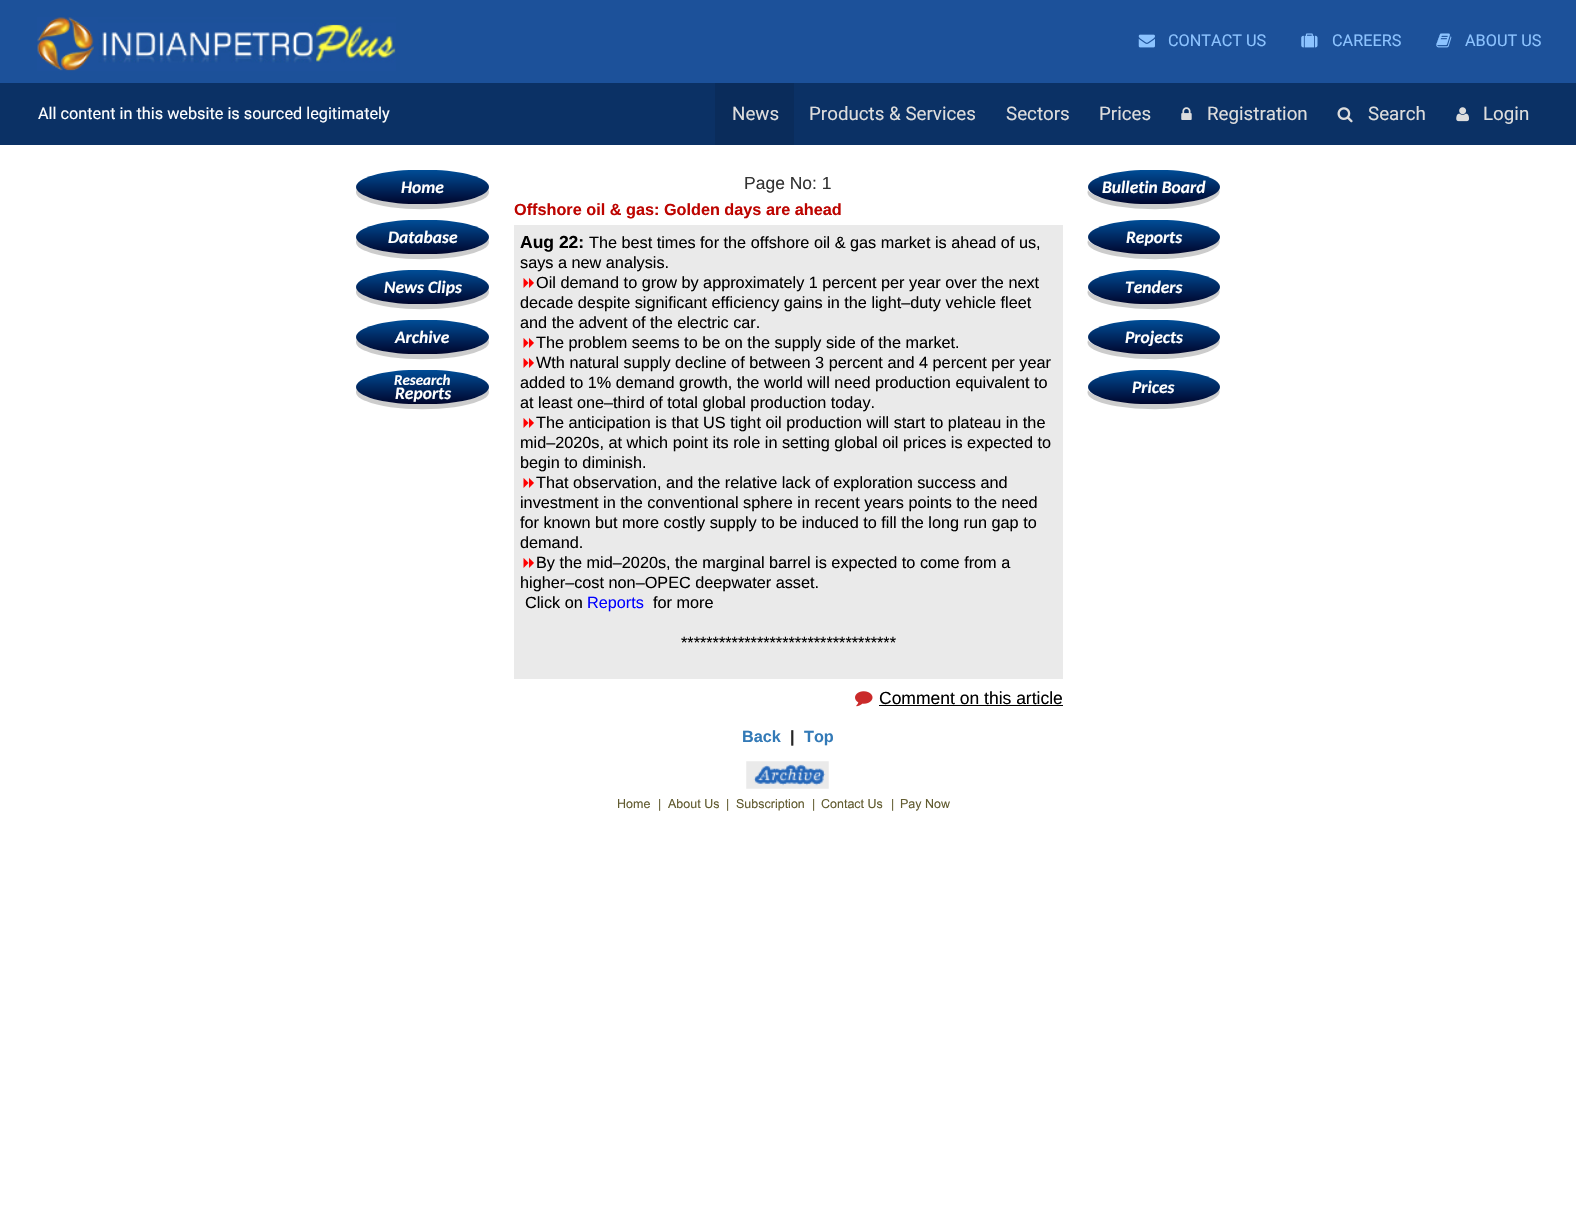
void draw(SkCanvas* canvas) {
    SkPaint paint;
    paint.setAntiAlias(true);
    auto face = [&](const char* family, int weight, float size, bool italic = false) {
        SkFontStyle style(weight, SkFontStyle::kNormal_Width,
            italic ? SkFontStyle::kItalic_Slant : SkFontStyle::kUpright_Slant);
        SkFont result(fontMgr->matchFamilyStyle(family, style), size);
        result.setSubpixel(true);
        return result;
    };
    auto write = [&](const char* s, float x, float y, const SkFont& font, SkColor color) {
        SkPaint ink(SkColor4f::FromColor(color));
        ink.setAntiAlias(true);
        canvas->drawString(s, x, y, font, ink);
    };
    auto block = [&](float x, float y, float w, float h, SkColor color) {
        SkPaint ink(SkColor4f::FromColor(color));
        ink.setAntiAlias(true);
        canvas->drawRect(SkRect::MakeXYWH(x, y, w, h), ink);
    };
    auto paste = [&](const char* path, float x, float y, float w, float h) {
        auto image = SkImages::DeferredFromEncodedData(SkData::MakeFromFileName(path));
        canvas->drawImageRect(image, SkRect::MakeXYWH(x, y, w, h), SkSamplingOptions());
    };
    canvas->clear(SK_ColorWHITE);
    block(0, 0, 1576, 83, SkColorSetRGB(28, 81, 154));
    paste("pic1.png", 37, 17, 359, 54);
    paste("pic2.png", 1138, 34, 17, 14);
    auto kFont1 = face("Roboto", 400, 16.25f);
    write("CONTACT US", 1168, 46, kFont1, SkColorSetRGB(140, 195, 255));
    paste("pic3.png", 1301, 33, 17, 15);
    write("CAREERS", 1332, 46, kFont1, SkColorSetRGB(140, 195, 255));
    paste("pic4.png", 1436, 33, 16, 15);
    write("ABOUT US", 1465, 46, kFont1, SkColorSetRGB(140, 195, 255));
    block(0, 83, 1576, 62, SkColorSetRGB(11, 49, 101));
    write("All content in this website is sourced legitimately", 38, 119, kFont1, SK_ColorWHITE);
    block(715, 83, 79, 62, SkColorSetRGB(10, 44, 91));
    auto kFont2 = face("Roboto", 400, 18.75f);
    write("News", 732, 120, kFont2, SkColorSetRGB(221, 221, 221));
    write("Products & Services", 809, 120, kFont2, SkColorSetRGB(221, 221, 221));
    write("Sectors", 1006, 120, kFont2, SkColorSetRGB(221, 221, 221));
    write("Prices", 1099, 120, kFont2, SkColorSetRGB(221, 221, 221));
    paste("pic5.png", 1181, 107, 11, 13);
    write("Registration", 1207, 120, kFont2, SkColorSetRGB(221, 221, 221));
    paste("pic6.png", 1337, 107, 16, 16);
    write("Search", 1368, 120, kFont2, SkColorSetRGB(221, 221, 221));
    paste("pic7.png", 1456, 107, 13, 15);
    write("Login", 1483, 120, kFont2, SkColorSetRGB(221, 221, 221));
    paint.setColor(SkColorSetRGB(204, 204, 204));
    canvas->drawPath(SkPathBuilder().moveTo(357, 189).cubicTo(353, 195, 362, 200, 366, 201).cubicTo(391, 212, 454, 212, 479, 201).cubicTo(483, 200, 492, 195, 488, 189).cubicTo(478, 209, 367, 209, 357, 189).close().detach(), paint);
    {
        const SkColor colors[] = {SkColorSetRGB(0, 5, 44), SkColorSetRGB(0, 77, 151)};
        const float stops[] = {0, 1};
        const SkPoint ends[] = {{423, 204}, {423, 170}};
        paint.setShader(SkGradientShader::MakeLinear(ends, colors, stops, 2, SkTileMode::kClamp));
        paint.setAlpha(255);
    }
    canvas->drawPath(SkPathBuilder().moveTo(415, 170).lineTo(430, 170).cubicTo(462, 170, 489, 178, 489, 187).cubicTo(489, 196, 462, 204, 430, 204).lineTo(415, 204).cubicTo(383, 204, 356, 196, 356, 187).cubicTo(356, 178, 383, 170, 415, 170).close().detach(), paint);
    auto kFont3 = face("Carlito", 700, 17.5f, true);
    write("Home", 401, 193, kFont3, SK_ColorWHITE);
    paint.setShader(nullptr);
    paint.setColor(SkColorSetRGB(204, 204, 204));
    canvas->drawPath(SkPathBuilder().moveTo(357, 239).cubicTo(353, 245, 362, 250, 366, 251).cubicTo(391, 262, 454, 262, 479, 251).cubicTo(483, 250, 492, 245, 488, 239).cubicTo(478, 259, 367, 259, 357, 239).close().detach(), paint);
    {
        const SkColor colors[] = {SkColorSetRGB(0, 5, 44), SkColorSetRGB(0, 77, 151)};
        const float stops[] = {0, 1};
        const SkPoint ends[] = {{423, 254}, {423, 220}};
        paint.setShader(SkGradientShader::MakeLinear(ends, colors, stops, 2, SkTileMode::kClamp));
        paint.setAlpha(255);
    }
    canvas->drawPath(SkPathBuilder().moveTo(415, 220).lineTo(430, 220).cubicTo(462, 220, 489, 228, 489, 237).cubicTo(489, 246, 462, 254, 430, 254).lineTo(415, 254).cubicTo(383, 254, 356, 246, 356, 237).cubicTo(356, 228, 383, 220, 415, 220).close().detach(), paint);
    write("Database", 388, 243, kFont3, SK_ColorWHITE);
    paint.setShader(nullptr);
    paint.setColor(SkColorSetRGB(204, 204, 204));
    canvas->drawPath(SkPathBuilder().moveTo(357, 289).cubicTo(353, 295, 362, 300, 366, 301).cubicTo(391, 312, 454, 312, 479, 301).cubicTo(483, 300, 492, 295, 488, 289).cubicTo(478, 309, 367, 309, 357, 289).close().detach(), paint);
    {
        const SkColor colors[] = {SkColorSetRGB(0, 5, 44), SkColorSetRGB(0, 77, 151)};
        const float stops[] = {0, 1};
        const SkPoint ends[] = {{423, 304}, {423, 270}};
        paint.setShader(SkGradientShader::MakeLinear(ends, colors, stops, 2, SkTileMode::kClamp));
        paint.setAlpha(255);
    }
    canvas->drawPath(SkPathBuilder().moveTo(415, 270).lineTo(430, 270).cubicTo(462, 270, 489, 278, 489, 287).cubicTo(489, 296, 462, 304, 430, 304).lineTo(415, 304).cubicTo(383, 304, 356, 296, 356, 287).cubicTo(356, 278, 383, 270, 415, 270).close().detach(), paint);
    write("News Clips", 384, 293, kFont3, SK_ColorWHITE);
    paint.setShader(nullptr);
    paint.setColor(SkColorSetRGB(204, 204, 204));
    canvas->drawPath(SkPathBuilder().moveTo(357, 339).cubicTo(353, 345, 362, 350, 366, 351).cubicTo(391, 362, 454, 362, 479, 351).cubicTo(483, 350, 492, 345, 488, 339).cubicTo(478, 359, 367, 359, 357, 339).close().detach(), paint);
    {
        const SkColor colors[] = {SkColorSetRGB(0, 5, 44), SkColorSetRGB(0, 77, 151)};
        const float stops[] = {0, 1};
        const SkPoint ends[] = {{423, 354}, {423, 320}};
        paint.setShader(SkGradientShader::MakeLinear(ends, colors, stops, 2, SkTileMode::kClamp));
        paint.setAlpha(255);
    }
    canvas->drawPath(SkPathBuilder().moveTo(415, 320).lineTo(430, 320).cubicTo(462, 320, 489, 328, 489, 337).cubicTo(489, 346, 462, 354, 430, 354).lineTo(415, 354).cubicTo(383, 354, 356, 346, 356, 337).cubicTo(356, 328, 383, 320, 415, 320).close().detach(), paint);
    write("Archive", 395, 343, kFont3, SK_ColorWHITE);
    paint.setShader(nullptr);
    paint.setColor(SkColorSetRGB(204, 204, 204));
    canvas->drawPath(SkPathBuilder().moveTo(357, 389).cubicTo(353, 395, 362, 400, 366, 401).cubicTo(391, 412, 454, 412, 479, 401).cubicTo(483, 400, 492, 395, 488, 389).cubicTo(478, 409, 367, 409, 357, 389).close().detach(), paint);
    {
        const SkColor colors[] = {SkColorSetRGB(0, 5, 44), SkColorSetRGB(0, 77, 151)};
        const float stops[] = {0, 1};
        const SkPoint ends[] = {{423, 404}, {423, 370}};
        paint.setShader(SkGradientShader::MakeLinear(ends, colors, stops, 2, SkTileMode::kClamp));
        paint.setAlpha(255);
    }
    canvas->drawPath(SkPathBuilder().moveTo(415, 370).lineTo(430, 370).cubicTo(462, 370, 489, 378, 489, 387).cubicTo(489, 396, 462, 404, 430, 404).lineTo(415, 404).cubicTo(383, 404, 356, 396, 356, 387).cubicTo(356, 378, 383, 370, 415, 370).close().detach(), paint);
    auto kFont4 = face("Carlito", 700, 15, true);
    write("Research", 394, 385, kFont4, SK_ColorWHITE);
    write("Reports", 395, 399, kFont3, SK_ColorWHITE);
    auto kFont5 = face("Liberation Sans", 400, 17.5f);
    write("Page No: 1", 744, 189, kFont5, SkColorSetRGB(51, 51, 51));
    auto kFont6 = face("Liberation Sans", 700, 16.25f);
    write("Offshore oil & gas: Golden days are ahead", 514, 215, kFont6, SkColorSetRGB(189, 4, 0));
    block(514, 225, 549, 454, SkColorSetRGB(234, 234, 234));
    auto kFont7 = face("Liberation Sans", 700, 17.5f);
    write("Aug 22:", 520, 248, kFont7, SK_ColorBLACK);
    auto kFont8 = face("Liberation Sans", 400, 16.25f);
    write("The best times for the offshore oil & gas market is ahead of us,", 589, 248, kFont8, SK_ColorBLACK);
    write("says a new analysis.", 520, 268, kFont8, SK_ColorBLACK);
    paste("pic8.png", 523, 278, 11, 10);
    write("Oil demand to grow by approximately 1 percent per year over the next", 536, 288, kFont8, SK_ColorBLACK);
    write("decade despite significant efficiency gains in the light–duty vehicle fleet", 520, 308, kFont8, SK_ColorBLACK);
    write("and the advent of the electric car.", 520, 328, kFont8, SK_ColorBLACK);
    paste("pic8.png", 523, 338, 11, 10);
    write("The problem seems to be on the supply side of the market.", 536, 348, kFont8, SK_ColorBLACK);
    paste("pic8.png", 523, 358, 11, 10);
    write("Wth natural supply decline of between 3 percent and 4 percent per year", 536, 368, kFont8, SK_ColorBLACK);
    write("added to 1% demand growth, the world will need production equivalent to", 520, 388, kFont8, SK_ColorBLACK);
    write("at least one–third of total global production today.", 520, 408, kFont8, SK_ColorBLACK);
    paste("pic8.png", 523, 418, 11, 10);
    write("The anticipation is that US tight oil production will start to plateau in the", 536, 428, kFont8, SK_ColorBLACK);
    write("mid–2020s, at which point its role in setting global oil prices is expected to", 520, 448, kFont8, SK_ColorBLACK);
    write("begin to diminish.", 520, 468, kFont8, SK_ColorBLACK);
    paste("pic8.png", 523, 478, 11, 10);
    write("That observation, and the relative lack of exploration success and", 536, 488, kFont8, SK_ColorBLACK);
    write("investment in the conventional sphere in recent years points to the need", 520, 508, kFont8, SK_ColorBLACK);
    write("for known but more costly supply to be induced to fill the long run gap to", 520, 528, kFont8, SK_ColorBLACK);
    write("demand.", 520, 548, kFont8, SK_ColorBLACK);
    paste("pic8.png", 523, 558, 11, 10);
    write("By the mid–2020s, the marginal barrel is expected to come from a", 536, 568, kFont8, SK_ColorBLACK);
    write("higher–cost non–OPEC deepwater asset.", 520, 588, kFont8, SK_ColorBLACK);
    write("Click on", 525, 608, kFont8, SK_ColorBLACK);
    write("Reports", 587, 608, kFont8, SkColorSetRGB(0, 0, 255));
    write("for more", 653, 608, kFont8, SK_ColorBLACK);
    write("**********************************", 681, 648, kFont8, SK_ColorBLACK);
    paste("pic9.png", 855, 691, 18, 16);
    write("Comment on this article", 879, 704, kFont5, SK_ColorBLACK);
    block(879, 705, 184, 1, SK_ColorBLACK);
    write("Back", 742, 742, kFont6, SkColorSetRGB(51, 122, 183));
    write("|", 790, 742, kFont6, SkColorSetRGB(38, 38, 38));
    write("Top", 804, 742, kFont6, SkColorSetRGB(51, 122, 183));
    paste("pic10.png", 746, 761, 83, 28);
    auto kFont9 = face("Arial", 400, 12.5f);
    write("Home", 617, 808, kFont9, SkColorSetRGB(98, 92, 49));
    write("|", 658, 808, kFont9, SkColorSetRGB(98, 92, 49));
    write("About Us", 668, 808, kFont9, SkColorSetRGB(98, 92, 49));
    write("|", 726, 808, kFont9, SkColorSetRGB(98, 92, 49));
    write("Subscription", 736, 808, kFont9, SkColorSetRGB(98, 92, 49));
    write("|", 812, 808, kFont9, SkColorSetRGB(98, 92, 49));
    write("Contact Us", 821, 808, kFont9, SkColorSetRGB(98, 92, 49));
    write("|", 891, 808, kFont9, SkColorSetRGB(98, 92, 49));
    write("Pay Now", 900, 808, kFont9, SkColorSetRGB(98, 92, 49));
    paint.setShader(nullptr);
    paint.setColor(SkColorSetRGB(204, 204, 204));
    canvas->drawPath(SkPathBuilder().moveTo(1088, 190).cubicTo(1079, 210, 1189, 217, 1215, 198).cubicTo(1218, 196, 1221, 193, 1219, 189).cubicTo(1209, 209, 1100, 208, 1088, 190).close().detach(), paint);
    {
        const SkColor colors[] = {SkColorSetRGB(0, 5, 44), SkColorSetRGB(0, 77, 151)};
        const float stops[] = {0, 1};
        const SkPoint ends[] = {{1154, 204}, {1154, 170}};
        paint.setShader(SkGradientShader::MakeLinear(ends, colors, stops, 2, SkTileMode::kClamp));
        paint.setAlpha(255);
    }
    canvas->drawPath(SkPathBuilder().moveTo(1147, 170).lineTo(1161, 170).cubicTo(1194, 170, 1220, 178, 1220, 187).cubicTo(1220, 196, 1194, 204, 1161, 204).lineTo(1147, 204).cubicTo(1114, 204, 1088, 196, 1088, 187).cubicTo(1088, 178, 1114, 170, 1147, 170).close().detach(), paint);
    write("Bulletin Board", 1102, 193, kFont3, SK_ColorWHITE);
    paint.setShader(nullptr);
    paint.setColor(SkColorSetRGB(204, 204, 204));
    canvas->drawPath(SkPathBuilder().moveTo(1088, 240).cubicTo(1079, 260, 1189, 267, 1215, 248).cubicTo(1218, 246, 1221, 243, 1219, 239).cubicTo(1209, 259, 1100, 258, 1088, 240).close().detach(), paint);
    {
        const SkColor colors[] = {SkColorSetRGB(0, 5, 44), SkColorSetRGB(0, 77, 151)};
        const float stops[] = {0, 1};
        const SkPoint ends[] = {{1154, 254}, {1154, 220}};
        paint.setShader(SkGradientShader::MakeLinear(ends, colors, stops, 2, SkTileMode::kClamp));
        paint.setAlpha(255);
    }
    canvas->drawPath(SkPathBuilder().moveTo(1147, 220).lineTo(1161, 220).cubicTo(1194, 220, 1220, 228, 1220, 237).cubicTo(1220, 246, 1194, 254, 1161, 254).lineTo(1147, 254).cubicTo(1114, 254, 1088, 246, 1088, 237).cubicTo(1088, 228, 1114, 220, 1147, 220).close().detach(), paint);
    write("Reports", 1126, 243, kFont3, SK_ColorWHITE);
    paint.setShader(nullptr);
    paint.setColor(SkColorSetRGB(204, 204, 204));
    canvas->drawPath(SkPathBuilder().moveTo(1088, 290).cubicTo(1079, 310, 1189, 317, 1215, 298).cubicTo(1218, 296, 1221, 293, 1219, 289).cubicTo(1209, 309, 1100, 308, 1088, 290).close().detach(), paint);
    {
        const SkColor colors[] = {SkColorSetRGB(0, 5, 44), SkColorSetRGB(0, 77, 151)};
        const float stops[] = {0, 1};
        const SkPoint ends[] = {{1154, 304}, {1154, 270}};
        paint.setShader(SkGradientShader::MakeLinear(ends, colors, stops, 2, SkTileMode::kClamp));
        paint.setAlpha(255);
    }
    canvas->drawPath(SkPathBuilder().moveTo(1147, 270).lineTo(1161, 270).cubicTo(1194, 270, 1220, 278, 1220, 287).cubicTo(1220, 296, 1194, 304, 1161, 304).lineTo(1147, 304).cubicTo(1114, 304, 1088, 296, 1088, 287).cubicTo(1088, 278, 1114, 270, 1147, 270).close().detach(), paint);
    write("Tenders", 1125, 293, kFont3, SK_ColorWHITE);
    paint.setShader(nullptr);
    paint.setColor(SkColorSetRGB(204, 204, 204));
    canvas->drawPath(SkPathBuilder().moveTo(1088, 340).cubicTo(1079, 360, 1189, 367, 1215, 348).cubicTo(1218, 346, 1221, 343, 1219, 339).cubicTo(1209, 359, 1100, 358, 1088, 340).close().detach(), paint);
    {
        const SkColor colors[] = {SkColorSetRGB(0, 5, 44), SkColorSetRGB(0, 77, 151)};
        const float stops[] = {0, 1};
        const SkPoint ends[] = {{1154, 354}, {1154, 320}};
        paint.setShader(SkGradientShader::MakeLinear(ends, colors, stops, 2, SkTileMode::kClamp));
        paint.setAlpha(255);
    }
    canvas->drawPath(SkPathBuilder().moveTo(1147, 320).lineTo(1161, 320).cubicTo(1194, 320, 1220, 328, 1220, 337).cubicTo(1220, 346, 1194, 354, 1161, 354).lineTo(1147, 354).cubicTo(1114, 354, 1088, 346, 1088, 337).cubicTo(1088, 328, 1114, 320, 1147, 320).close().detach(), paint);
    write("Projects", 1125, 343, kFont3, SK_ColorWHITE);
    paint.setShader(nullptr);
    paint.setColor(SkColorSetRGB(204, 204, 204));
    canvas->drawPath(SkPathBuilder().moveTo(1088, 390).cubicTo(1079, 410, 1189, 417, 1215, 398).cubicTo(1218, 396, 1221, 393, 1219, 389).cubicTo(1209, 409, 1100, 408, 1088, 390).close().detach(), paint);
    {
        const SkColor colors[] = {SkColorSetRGB(0, 5, 44), SkColorSetRGB(0, 77, 151)};
        const float stops[] = {0, 1};
        const SkPoint ends[] = {{1154, 404}, {1154, 370}};
        paint.setShader(SkGradientShader::MakeLinear(ends, colors, stops, 2, SkTileMode::kClamp));
        paint.setAlpha(255);
    }
    canvas->drawPath(SkPathBuilder().moveTo(1147, 370).lineTo(1161, 370).cubicTo(1194, 370, 1220, 378, 1220, 387).cubicTo(1220, 396, 1194, 404, 1161, 404).lineTo(1147, 404).cubicTo(1114, 404, 1088, 396, 1088, 387).cubicTo(1088, 378, 1114, 370, 1147, 370).close().detach(), paint);
    write("Prices", 1132, 393, kFont3, SK_ColorWHITE);
}
